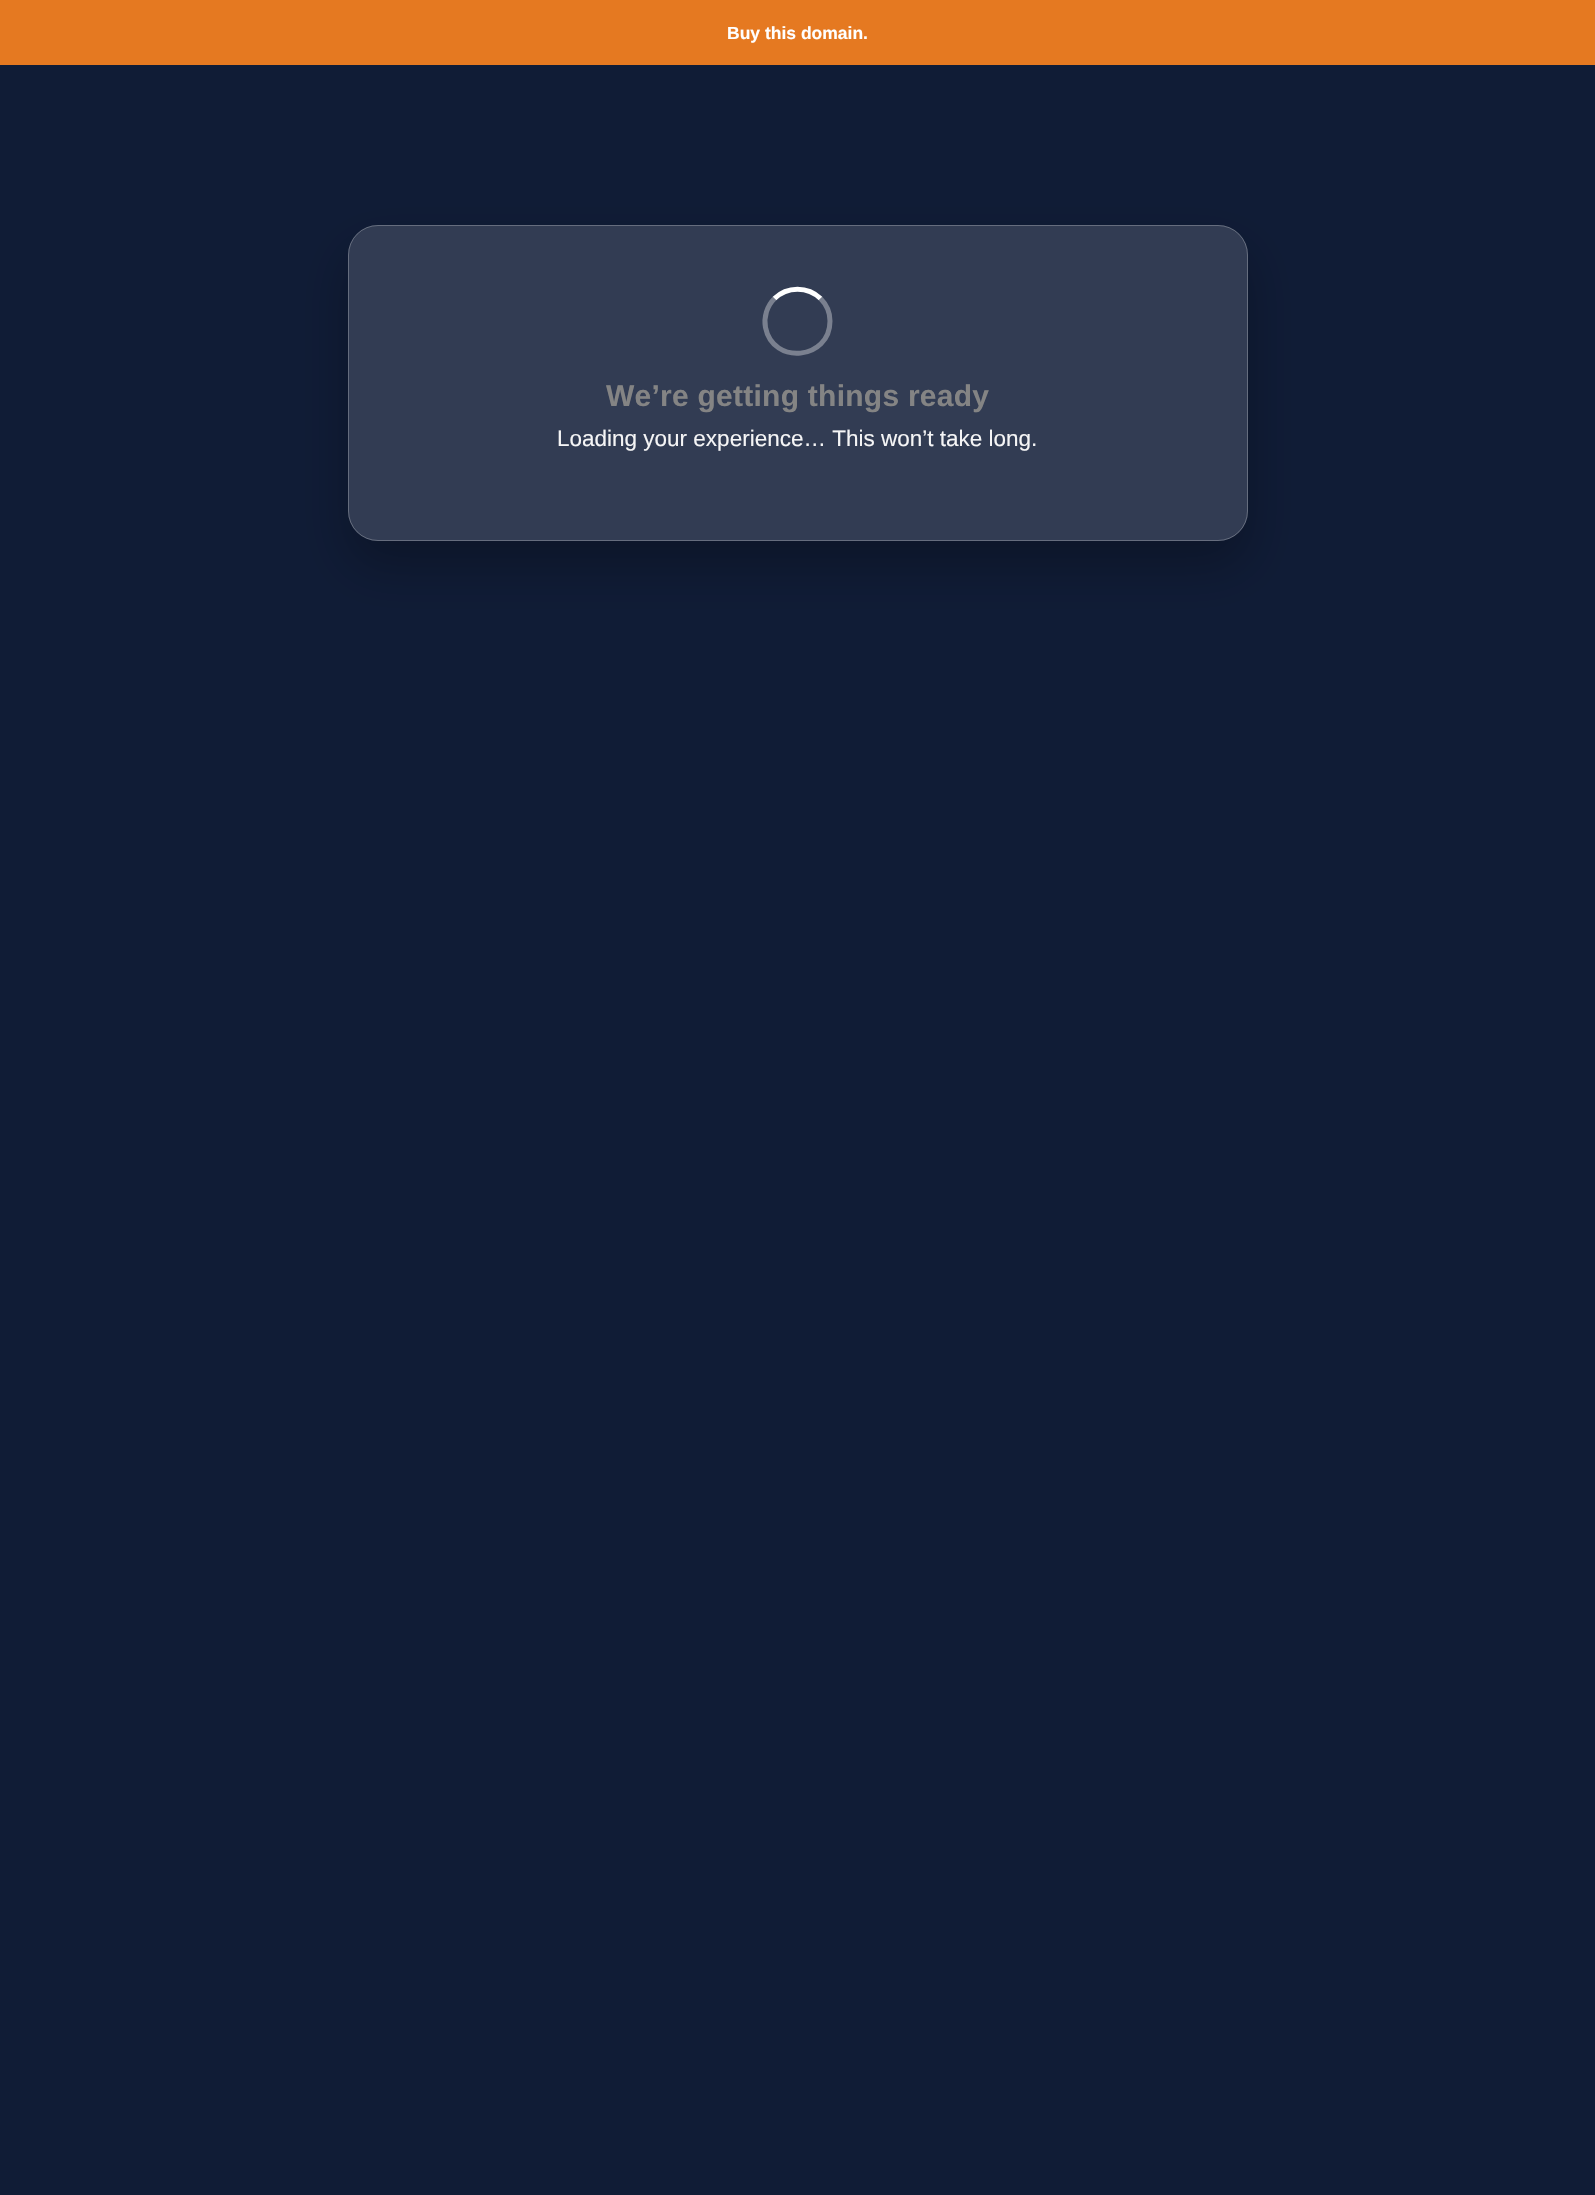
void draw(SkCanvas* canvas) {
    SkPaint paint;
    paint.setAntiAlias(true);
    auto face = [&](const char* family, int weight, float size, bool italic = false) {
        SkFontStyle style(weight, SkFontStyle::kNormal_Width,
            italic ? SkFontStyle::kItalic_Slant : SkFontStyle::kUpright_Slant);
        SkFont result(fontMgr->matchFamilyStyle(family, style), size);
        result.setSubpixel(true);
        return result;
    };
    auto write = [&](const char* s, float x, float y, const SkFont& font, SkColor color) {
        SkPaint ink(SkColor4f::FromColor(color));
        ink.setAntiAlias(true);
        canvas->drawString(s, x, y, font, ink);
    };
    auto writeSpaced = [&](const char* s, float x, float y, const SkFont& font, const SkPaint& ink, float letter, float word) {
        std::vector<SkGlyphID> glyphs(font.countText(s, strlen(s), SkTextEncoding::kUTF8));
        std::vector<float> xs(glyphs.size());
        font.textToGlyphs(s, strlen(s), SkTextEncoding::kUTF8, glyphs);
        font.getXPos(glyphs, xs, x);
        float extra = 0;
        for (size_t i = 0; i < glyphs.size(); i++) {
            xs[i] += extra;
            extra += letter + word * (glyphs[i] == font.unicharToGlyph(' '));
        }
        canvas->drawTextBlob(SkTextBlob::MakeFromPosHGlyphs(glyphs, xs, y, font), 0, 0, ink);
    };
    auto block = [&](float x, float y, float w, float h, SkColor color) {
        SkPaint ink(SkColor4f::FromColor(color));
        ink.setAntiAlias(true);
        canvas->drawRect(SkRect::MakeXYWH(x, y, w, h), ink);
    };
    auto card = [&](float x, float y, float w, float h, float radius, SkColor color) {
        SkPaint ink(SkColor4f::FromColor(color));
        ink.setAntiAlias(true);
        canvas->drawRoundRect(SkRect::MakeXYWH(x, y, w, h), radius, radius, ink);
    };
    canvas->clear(SkColorSetRGB(16, 28, 54));
    block(0, 0, 1595, 65, SkColorSetRGB(229, 121, 33));
    auto kFont1 = face("Liberation Sans", 700, 17.5f);
    write("Buy this domain.", 727, 39, kFont1, SK_ColorWHITE);
    canvas->save();
    canvas->clipPath(SkPathBuilder(SkPathFillType::kEvenOdd).moveTo(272, 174).lineTo(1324, 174).lineTo(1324, 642).lineTo(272, 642).close().moveTo(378, 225).lineTo(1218, 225).cubicTo(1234.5f, 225, 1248, 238.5f, 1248, 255).lineTo(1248, 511).cubicTo(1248, 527.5f, 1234.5f, 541, 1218, 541).lineTo(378, 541).cubicTo(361.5f, 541, 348, 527.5f, 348, 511).lineTo(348, 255).cubicTo(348, 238.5f, 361.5f, 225, 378, 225).close().detach(), true);
    paint.setColor(SkColorSetARGB(64, 0, 0, 0));
    paint.setMaskFilter(SkMaskFilter::MakeBlur(kNormal_SkBlurStyle, 25));
    canvas->drawRoundRect(SkRect::MakeXYWH(348, 250, 900, 316), 30, 30, paint);
    paint.setMaskFilter(nullptr);
    canvas->restore();
    card(348, 225, 900, 316, 30, SkColorSetARGB(36, 255, 255, 255));
    paint.setStyle(SkPaint::kStroke_Style);
    paint.setStrokeWidth(1);
    paint.setColor(SkColorSetARGB(64, 255, 255, 255));
    canvas->drawRoundRect(SkRect::MakeXYWH(348.5f, 225.5f, 899, 315), 29.5f, 29.5f, paint);
    paint.setStrokeWidth(5);
    paint.setColor(SK_ColorWHITE);
    canvas->drawPath(SkPathBuilder().moveTo(774.5f, 298.5f).cubicTo(787, 286, 808, 286, 820.5f, 298.5f).detach(), paint);
    paint.setColor(SkColorSetARGB(89, 255, 255, 255));
    canvas->drawPath(SkPathBuilder().moveTo(820.5f, 298.5f).cubicTo(826.5f, 304.5f, 830, 312.5f, 830, 321).cubicTo(830, 360, 773, 365.5f, 765.5f, 327.5f).cubicTo(763.5f, 317, 767, 306, 774.5f, 298.5f).detach(), paint);
    auto kFont2 = face("Liberation Sans", 700, 30);
    paint.setStyle(SkPaint::kFill_Style);
    paint.setColor(SkColorSetRGB(132, 132, 132));
    writeSpaced("We’re getting things ready", 606, 406, kFont2, paint, 0.25f, 0);
    auto kFont3 = face("Liberation Sans", 400, 22.5f);
    write("Loading your experience… This won’t take long.", 557, 446, kFont3, SkColorSetRGB(245, 245, 246));
}
